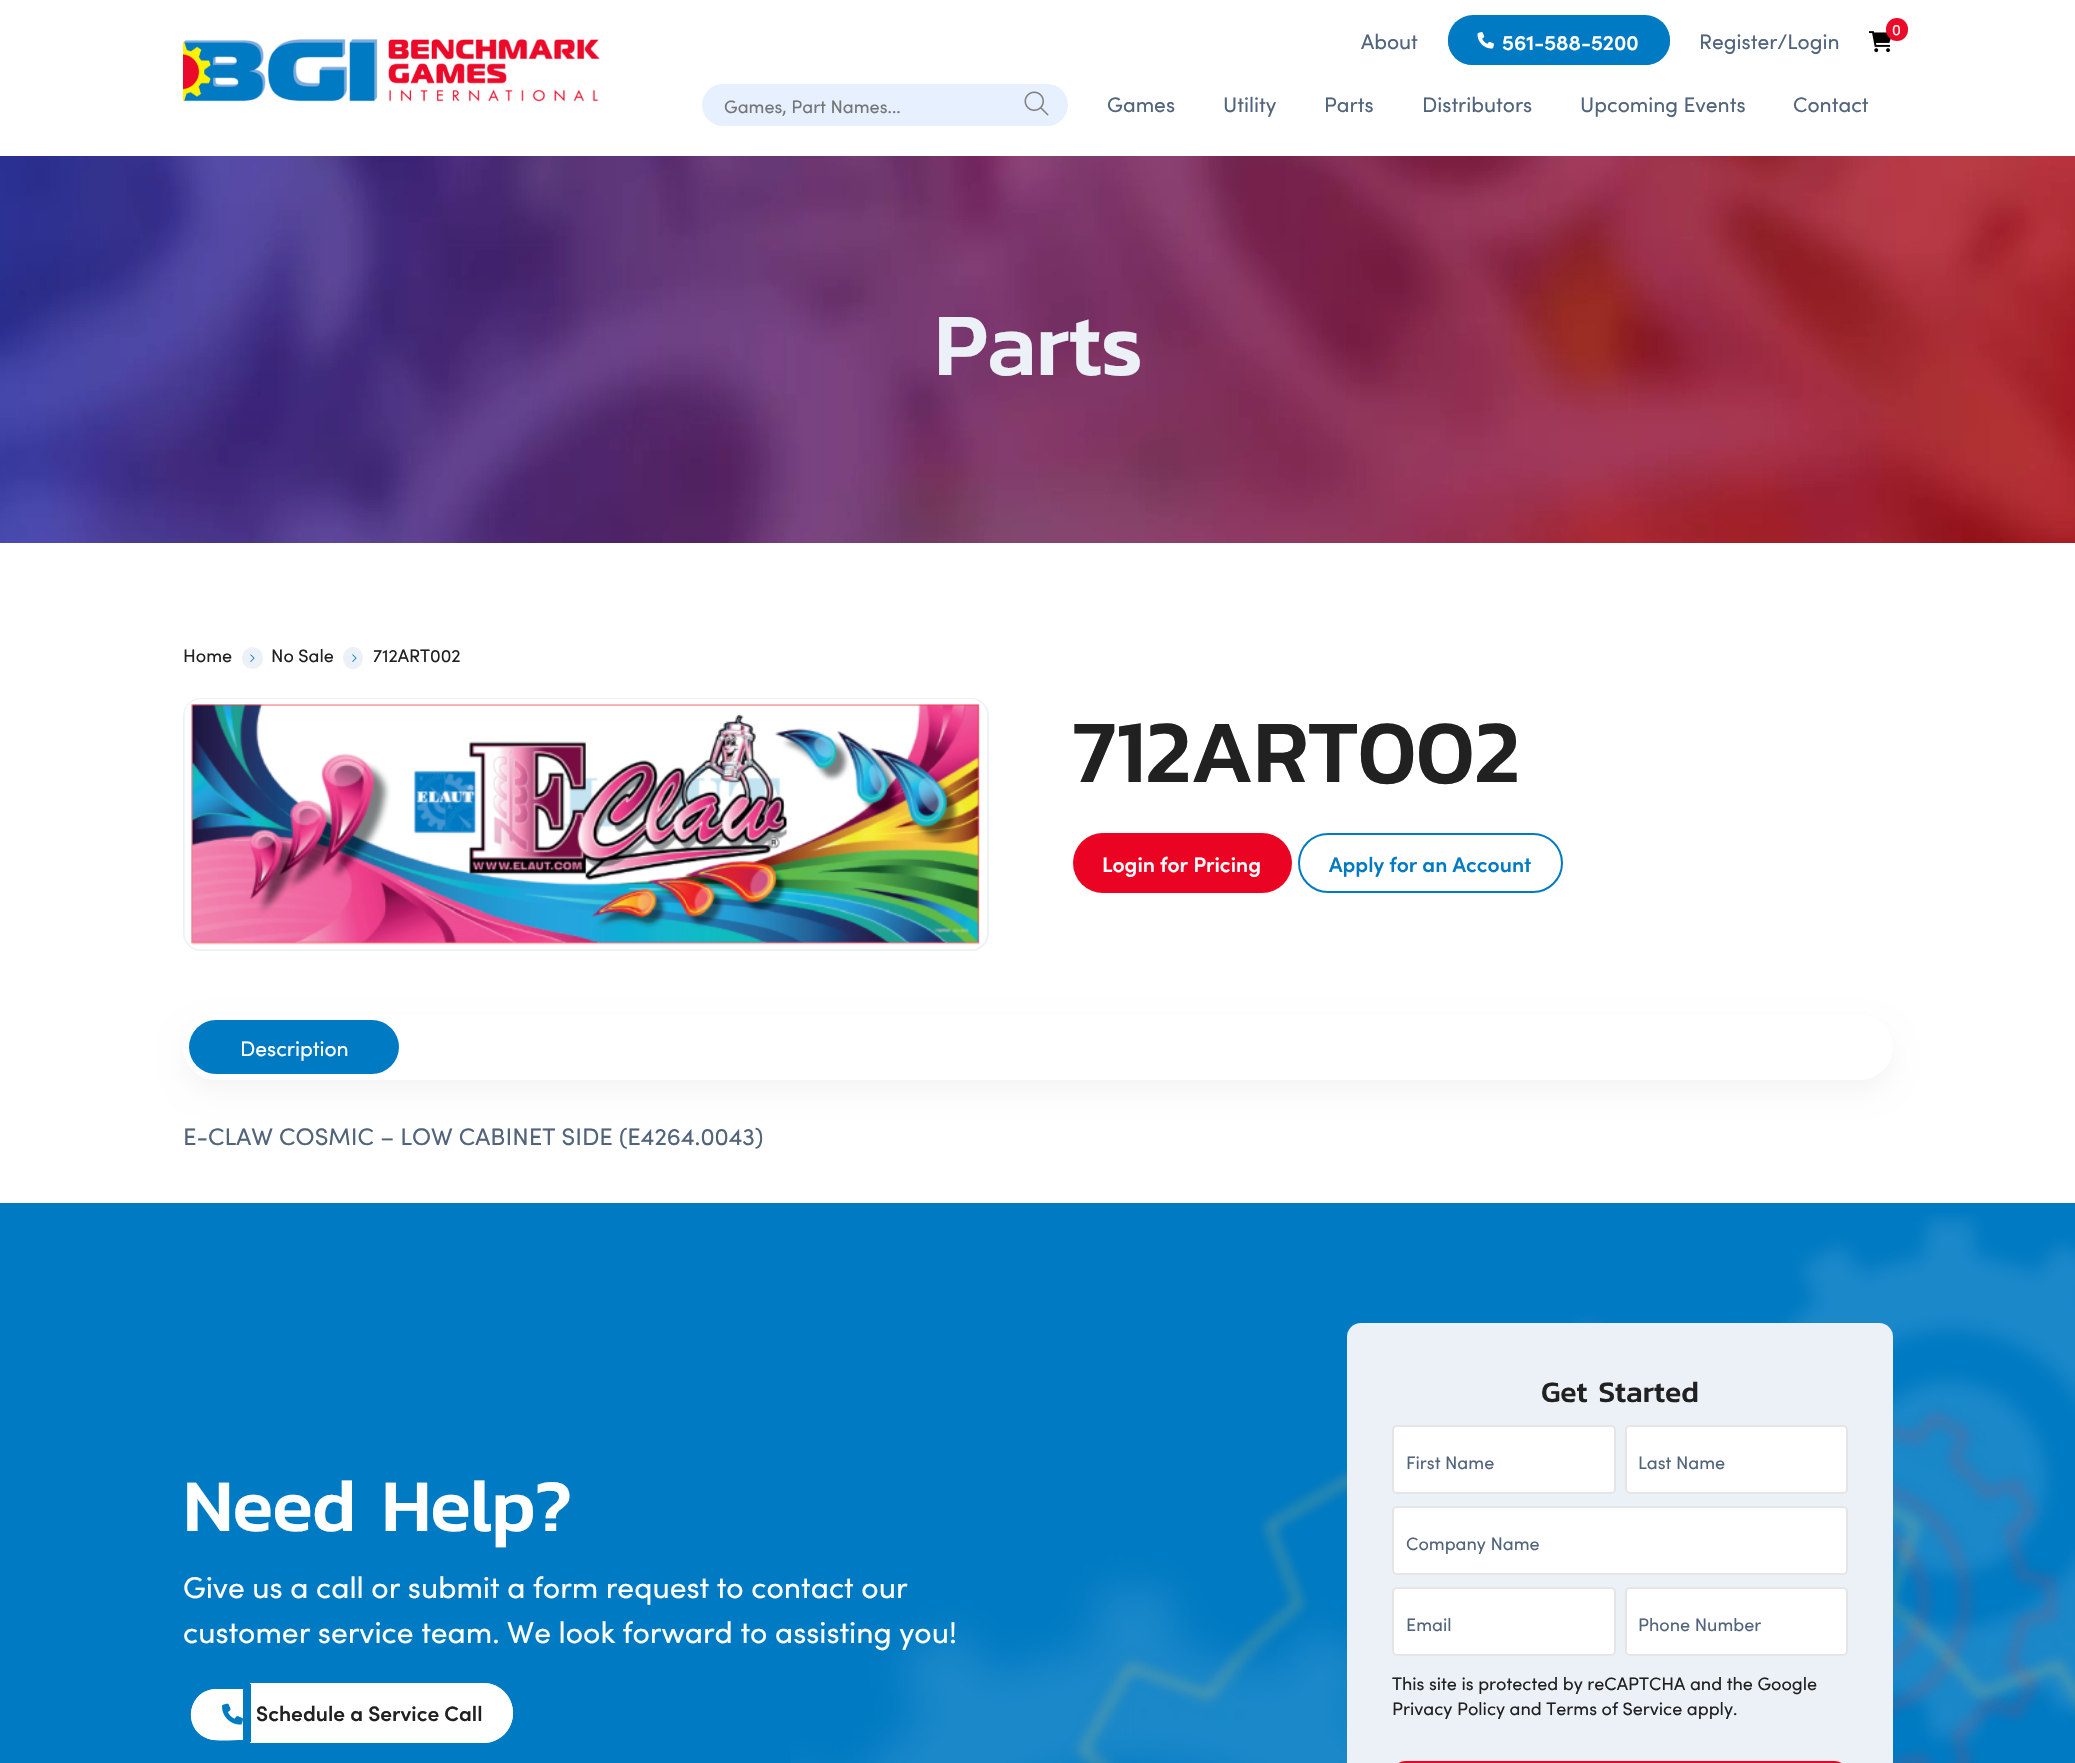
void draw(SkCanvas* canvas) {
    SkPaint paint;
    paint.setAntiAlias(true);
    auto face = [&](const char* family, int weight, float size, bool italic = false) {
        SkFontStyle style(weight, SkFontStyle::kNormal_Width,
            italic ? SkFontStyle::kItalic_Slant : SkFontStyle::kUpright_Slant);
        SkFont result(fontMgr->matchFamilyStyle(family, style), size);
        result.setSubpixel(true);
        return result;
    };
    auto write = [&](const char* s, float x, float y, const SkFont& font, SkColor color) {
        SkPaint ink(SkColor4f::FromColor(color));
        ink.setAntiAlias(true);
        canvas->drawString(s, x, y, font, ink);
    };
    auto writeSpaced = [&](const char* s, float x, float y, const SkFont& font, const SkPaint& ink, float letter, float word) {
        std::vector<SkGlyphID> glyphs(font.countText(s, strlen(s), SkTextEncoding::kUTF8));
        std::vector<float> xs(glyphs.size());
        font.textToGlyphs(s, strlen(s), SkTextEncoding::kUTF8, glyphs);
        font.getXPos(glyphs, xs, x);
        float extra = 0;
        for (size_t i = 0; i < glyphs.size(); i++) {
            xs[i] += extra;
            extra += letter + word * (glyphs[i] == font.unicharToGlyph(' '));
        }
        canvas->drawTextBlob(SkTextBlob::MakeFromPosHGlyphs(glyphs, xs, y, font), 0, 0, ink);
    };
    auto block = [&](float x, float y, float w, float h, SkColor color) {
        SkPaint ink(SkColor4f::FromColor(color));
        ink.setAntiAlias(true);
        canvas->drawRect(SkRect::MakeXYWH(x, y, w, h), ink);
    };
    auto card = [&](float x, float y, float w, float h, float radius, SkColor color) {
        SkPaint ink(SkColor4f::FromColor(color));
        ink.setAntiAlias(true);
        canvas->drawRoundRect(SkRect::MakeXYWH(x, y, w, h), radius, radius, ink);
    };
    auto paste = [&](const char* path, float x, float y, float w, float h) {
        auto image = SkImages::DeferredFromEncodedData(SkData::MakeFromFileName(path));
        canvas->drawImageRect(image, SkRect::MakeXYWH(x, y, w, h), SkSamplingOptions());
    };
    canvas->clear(SK_ColorWHITE);
    paste("pic1.png", 183, 39, 417, 63);
    paste("pic2.png", 1869, 31, 22, 22);
    card(1886, 18, 22, 23, 11, SkColorSetRGB(235, 10, 42));
    auto kFont1 = face("Sofia", 400, 15);
    write("0", 1892, 35, kFont1, SK_ColorWHITE);
    auto kFont2 = face("Sofia", 400, 21);
    write("About", 1361, 49, kFont2, SkColorSetRGB(82, 100, 124));
    card(1448, 15, 222, 50, 25, SkColorSetRGB(0, 122, 195));
    card(1448, 17, 222, 48, 24, SkColorSetRGB(0, 122, 195));
    paste("pic3.png", 1477, 32, 17, 17);
    auto kFont3 = face("Sofia", 600, 21);
    write("561-588-5200", 1502, 50, kFont3, SK_ColorWHITE);
    write("Register/Login", 1699, 49, kFont2, SkColorSetRGB(82, 100, 124));
    card(702, 84, 366, 42, 21, SkColorSetRGB(230, 240, 255));
    auto kFont4 = face("Sofia", 400, 18);
    write("Games, Part Names...", 724, 113, kFont4, SkColorSetRGB(117, 117, 117));
    paste("pic4.png", 1024, 91, 25, 25);
    write("Games", 1107, 112, kFont2, SkColorSetRGB(82, 100, 124));
    write("Utility", 1223, 112, kFont2, SkColorSetRGB(82, 100, 124));
    write("Parts", 1324, 112, kFont2, SkColorSetRGB(82, 100, 124));
    write("Distributors", 1422, 112, kFont2, SkColorSetRGB(82, 100, 124));
    write("Upcoming Events", 1580, 112, kFont2, SkColorSetRGB(82, 100, 124));
    write("Contact", 1793, 112, kFont2, SkColorSetRGB(82, 100, 124));
    paste("pic5.png", 0, 156, 2075, 387);
    auto kFont5 = face("Kanit", 500, 90);
    paint.setColor(SkColorSetRGB(236, 241, 248));
    writeSpaced("Parts", 934, 375, kFont5, paint, -1, 0);
    write("Home", 183, 662, kFont4, SkColorSetRGB(33, 33, 33));
    card(242, 647, 21, 22, 10.5f, SkColorSetRGB(236, 241, 248));
    paste("pic6.png", 250, 654, 5, 8);
    write("No Sale", 271, 662, kFont4, SkColorSetRGB(33, 33, 33));
    canvas->drawOval(SkRect::MakeXYWH(343, 647, 20, 22), paint);
    paste("pic6.png", 352, 654, 5, 8);
    write("712ART002", 373, 662, kFont4, SkColorSetRGB(33, 33, 33));
    paint.setStyle(SkPaint::kStroke_Style);
    paint.setStrokeWidth(2);
    canvas->drawRoundRect(SkRect::MakeXYWH(184, 699, 804, 251), 17, 17, paint);
    paste("pic7.png", 184, 699, 803, 251);
    paint.setStyle(SkPaint::kFill_Style);
    paint.setColor(SkColorSetRGB(33, 33, 33));
    writeSpaced("712ART002", 1072, 782, kFont5, paint, -1, 0);
    card(1073, 833, 219, 60, 30, SkColorSetRGB(234, 3, 35));
    write("Login for Pricing", 1102, 872, kFont3, SK_ColorWHITE);
    paint.setStyle(SkPaint::kStroke_Style);
    paint.setColor(SkColorSetRGB(0, 122, 195));
    canvas->drawRoundRect(SkRect::MakeXYWH(1299, 834, 263, 58), 29, 29, paint);
    write("Apply for an Account", 1329, 872, kFont3, SkColorSetRGB(0, 122, 195));
    paint.setStyle(SkPaint::kFill_Style);
    paint.setColor(SkColorSetARGB(10, 0, 0, 0));
    paint.setMaskFilter(SkMaskFilter::MakeBlur(kNormal_SkBlurStyle, 12));
    canvas->drawRoundRect(SkRect::MakeXYWH(183, 1026, 1710, 66), 33, 33, paint);
    paint.setMaskFilter(nullptr);
    card(183, 1014, 1710, 66, 33, SK_ColorWHITE);
    card(189, 1020, 210, 54, 27, SkColorSetRGB(0, 122, 195));
    write("Description", 240, 1056, kFont2, SK_ColorWHITE);
    auto kFont6 = face("Sofia", 400, 24);
    write("E-CLAW COSMIC – LOW CABINET SIDE (E4264.0043)", 183, 1145, kFont6, SkColorSetRGB(82, 100, 124));
    block(0, 1203, 2075, 560, SkColorSetRGB(0, 122, 195));
    paste("pic8.png", 791, 1213, 1284, 550);
    auto kFont7 = face("Kanit", 500, 75);
    paint.setColor(SK_ColorWHITE);
    writeSpaced("Need Help?", 183, 1531, kFont7, paint, -0.9f, 0);
    auto kFont8 = face("Sofia", 400, 30);
    write("Give us a call or submit a form request to contact our", 183, 1598, kFont8, SK_ColorWHITE);
    write("customer service team. We look forward to assisting you!", 183, 1643, kFont8, SK_ColorWHITE);
    canvas->drawPath(SkPathBuilder().moveTo(216.5f, 1689).lineTo(243, 1689).lineTo(243, 1740).lineTo(216.5f, 1740).cubicTo(202.5f, 1740, 191, 1728.5f, 191, 1714.5f).cubicTo(191, 1700.5f, 202.5f, 1689, 216.5f, 1689).close().detach(), paint);
    canvas->drawPath(SkPathBuilder(SkPathFillType::kEvenOdd).moveTo(216, 1689).lineTo(243, 1689).lineTo(243, 1740).cubicTo(233, 1740, 214, 1742, 206, 1738).cubicTo(181, 1727, 189, 1689, 216, 1689).close().moveTo(216, 1690).lineTo(243, 1690).lineTo(243, 1738).cubicTo(234, 1738, 215, 1740, 207, 1737).cubicTo(183, 1727, 190, 1690, 216, 1690).close().detach(), paint);
    canvas->drawPath(SkPathBuilder().moveTo(251, 1683).lineTo(483, 1683).cubicTo(499.5f, 1683, 513, 1696.5f, 513, 1713).cubicTo(513, 1729.5f, 499.5f, 1743, 483, 1743).lineTo(251, 1743).close().detach(), paint);
    canvas->drawPath(SkPathBuilder(SkPathFillType::kEvenOdd).moveTo(250, 1683).lineTo(483, 1683).cubicTo(500, 1683, 513, 1696, 513, 1713).cubicTo(513, 1730, 500, 1743, 483, 1743).lineTo(250, 1743).close().moveTo(250, 1684).lineTo(483, 1684).cubicTo(499, 1684, 512, 1697, 512, 1713).cubicTo(512, 1729, 499, 1742, 483, 1742).lineTo(250, 1742).close().detach(), paint);
    paste("pic9.png", 222, 1703, 21, 22);
    write("Schedule a Service Call", 256, 1721, kFont3, SkColorSetRGB(33, 33, 33));
    card(1347, 1323, 546, 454, 14, SkColorSetRGB(236, 241, 248));
    auto kFont9 = face("Kanit", 500, 30);
    write("Get Started", 1541, 1402, kFont9, SkColorSetRGB(33, 33, 33));
    card(1392, 1425, 224, 69, 5, SK_ColorWHITE);
    paint.setStyle(SkPaint::kStroke_Style);
    paint.setColor(SkColorSetARGB(26, 0, 0, 0));
    canvas->drawRoundRect(SkRect::MakeXYWH(1393, 1426, 222, 67), 4, 4, paint);
    write("First Name", 1406, 1469, kFont4, SkColorSetRGB(82, 100, 124));
    card(1625, 1425, 223, 69, 5, SK_ColorWHITE);
    canvas->drawRoundRect(SkRect::MakeXYWH(1626, 1426, 221, 67), 4, 4, paint);
    write("Last Name", 1638, 1469, kFont4, SkColorSetRGB(82, 100, 124));
    card(1392, 1506, 456, 69, 5, SK_ColorWHITE);
    canvas->drawRoundRect(SkRect::MakeXYWH(1393, 1507, 454, 67), 4, 4, paint);
    write("Company Name", 1406, 1550, kFont4, SkColorSetRGB(82, 100, 124));
    card(1392, 1587, 224, 69, 5, SK_ColorWHITE);
    canvas->drawRoundRect(SkRect::MakeXYWH(1393, 1588, 222, 67), 4, 4, paint);
    write("Email", 1406, 1631, kFont4, SkColorSetRGB(82, 100, 124));
    card(1625, 1587, 223, 69, 5, SK_ColorWHITE);
    canvas->drawRoundRect(SkRect::MakeXYWH(1626, 1588, 221, 67), 4, 4, paint);
    write("Phone Number", 1638, 1631, kFont4, SkColorSetRGB(82, 100, 124));
    write("This site is protected by reCAPTCHA and the Google", 1392, 1690, kFont4, SkColorSetRGB(33, 33, 33));
    write("Privacy Policy and Terms of Service apply.", 1392, 1715, kFont4, SkColorSetRGB(33, 33, 33));
    card(1392, 1761, 456, 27, 25, SkColorSetRGB(234, 3, 35));
}
